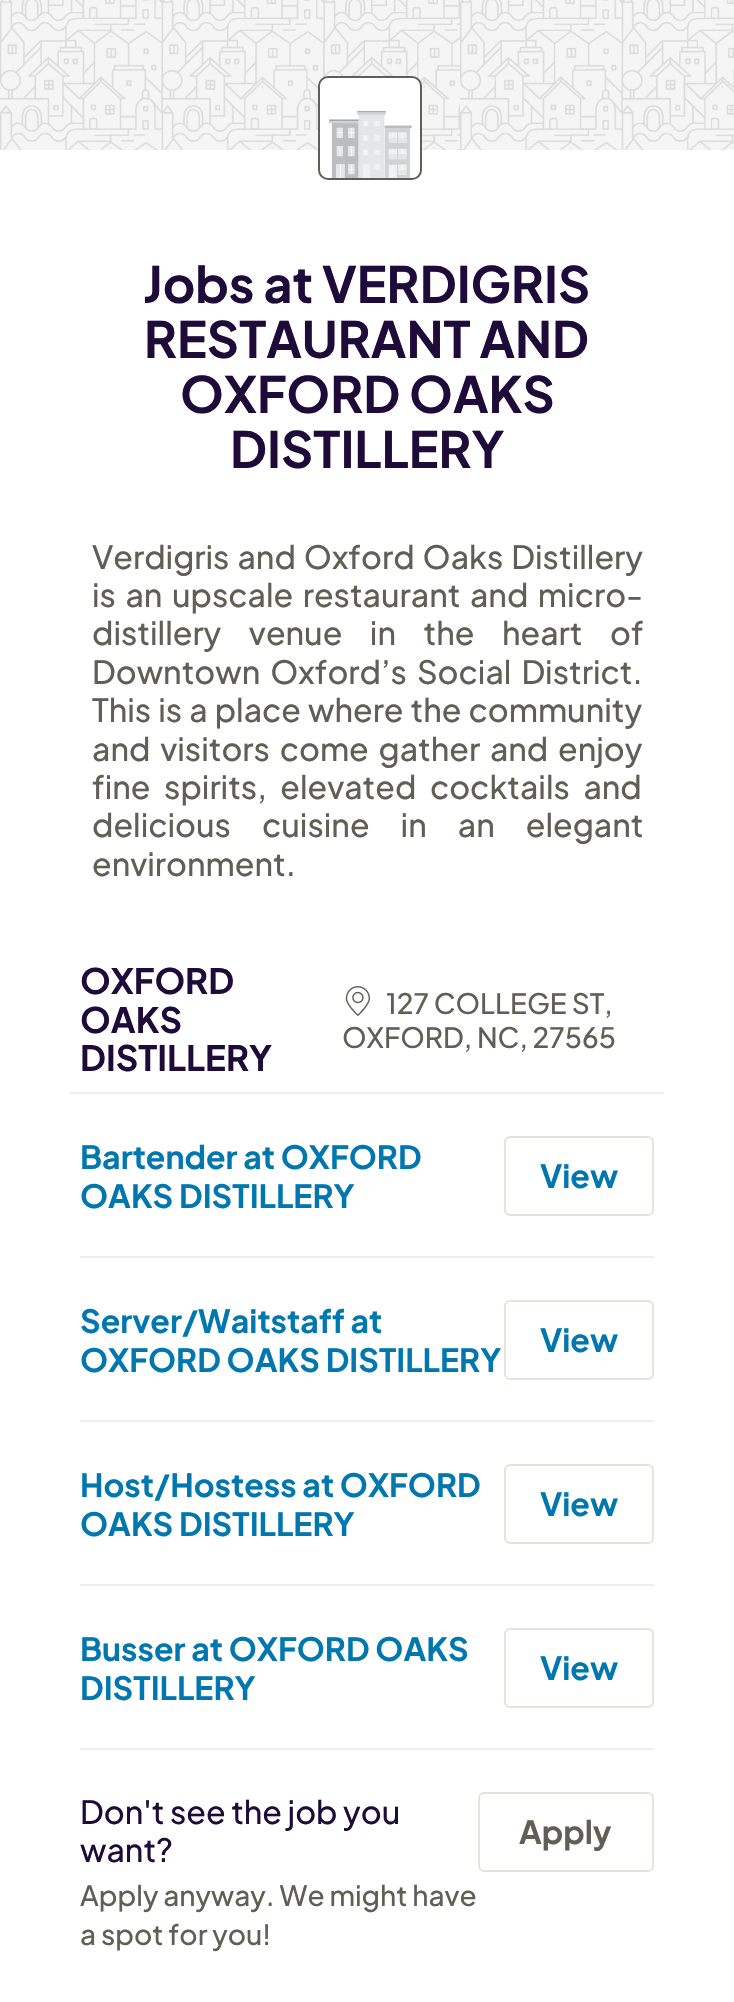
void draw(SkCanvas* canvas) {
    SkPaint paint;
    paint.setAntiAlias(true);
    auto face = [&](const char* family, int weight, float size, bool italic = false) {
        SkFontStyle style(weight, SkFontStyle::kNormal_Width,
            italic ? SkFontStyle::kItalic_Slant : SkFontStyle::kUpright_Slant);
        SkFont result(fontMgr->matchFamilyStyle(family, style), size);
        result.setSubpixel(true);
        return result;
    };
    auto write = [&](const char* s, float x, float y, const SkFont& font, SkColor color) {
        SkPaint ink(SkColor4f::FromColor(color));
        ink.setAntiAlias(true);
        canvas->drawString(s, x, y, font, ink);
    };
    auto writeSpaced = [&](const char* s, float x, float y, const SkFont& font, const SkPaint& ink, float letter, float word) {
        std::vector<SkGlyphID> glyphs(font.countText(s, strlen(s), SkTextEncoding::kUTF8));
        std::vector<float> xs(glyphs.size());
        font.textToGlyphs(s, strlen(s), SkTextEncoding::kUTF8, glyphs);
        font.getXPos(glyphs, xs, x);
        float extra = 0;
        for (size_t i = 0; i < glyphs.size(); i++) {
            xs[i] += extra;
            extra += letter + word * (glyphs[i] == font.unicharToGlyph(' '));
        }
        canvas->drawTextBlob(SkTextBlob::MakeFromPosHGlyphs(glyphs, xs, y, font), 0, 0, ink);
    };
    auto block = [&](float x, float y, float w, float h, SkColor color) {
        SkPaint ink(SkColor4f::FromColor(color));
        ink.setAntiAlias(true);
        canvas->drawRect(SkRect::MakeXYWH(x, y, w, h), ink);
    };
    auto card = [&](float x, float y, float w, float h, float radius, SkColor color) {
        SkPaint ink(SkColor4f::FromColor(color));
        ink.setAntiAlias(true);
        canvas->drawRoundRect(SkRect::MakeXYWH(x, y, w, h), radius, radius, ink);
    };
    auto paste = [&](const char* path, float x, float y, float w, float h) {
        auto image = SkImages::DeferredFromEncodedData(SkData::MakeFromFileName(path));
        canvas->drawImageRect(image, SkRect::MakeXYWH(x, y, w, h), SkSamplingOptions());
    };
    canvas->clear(SK_ColorWHITE);
    paste("pic1.png", 0, 0, 734, 150);
    card(318, 76, 104, 104, 10, SK_ColorWHITE);
    paste("pic2.png", 320, 111, 100, 67);
    paint.setStyle(SkPaint::kStroke_Style);
    paint.setStrokeWidth(2);
    paint.setColor(SkColorSetRGB(96, 95, 86));
    canvas->drawRoundRect(SkRect::MakeXYWH(319, 77, 102, 102), 9, 9, paint);
    auto kFont1 = face("Plus Jakarta Sans", 700, 50);
    write("Jobs at VERDIGRIS", 143, 303, kFont1, SkColorSetRGB(30, 11, 58));
    write("RESTAURANT AND", 144, 358, kFont1, SkColorSetRGB(30, 11, 58));
    write("OXFORD OAKS", 180, 413, kFont1, SkColorSetRGB(30, 11, 58));
    write("DISTILLERY", 230, 468, kFont1, SkColorSetRGB(30, 11, 58));
    auto kFont2 = face("Plus Jakarta Sans", 500, 32);
    paint.setStyle(SkPaint::kFill_Style);
    writeSpaced("Verdigris and Oxford Oaks Distillery", 92, 569, kFont2, paint, 0, 2.5f);
    writeSpaced("is an upscale restaurant and micro-", 92, 607, kFont2, paint, 0, 4);
    writeSpaced("distillery venue in the heart of", 92, 645, kFont2, paint, 0, 22);
    writeSpaced("Downtown Oxford’s Social District.", 92, 684, kFont2, paint, 0, 4.5f);
    writeSpaced("This is a place where the community", 92, 722, kFont2, paint, 0, 1.5f);
    writeSpaced("and visitors come gather and enjoy", 92, 761, kFont2, paint, 0, 4.25f);
    writeSpaced("fine spirits, elevated cocktails and", 92, 799, kFont2, paint, 0, 8);
    writeSpaced("delicious cuisine in an elegant", 92, 837, kFont2, paint, 0, 25.5f);
    write("environment.", 92, 876, kFont2, SkColorSetRGB(96, 95, 86));
    auto kFont3 = face("Plus Jakarta Sans", 700, 35);
    write("OXFORD", 80, 994, kFont3, SkColorSetRGB(30, 11, 58));
    write("OAKS", 80, 1033, kFont3, SkColorSetRGB(30, 11, 58));
    write("DISTILLERY", 80, 1071, kFont3, SkColorSetRGB(30, 11, 58));
    paste("pic3.png", 345, 986, 25, 30);
    auto kFont4 = face("Plus Jakarta Sans", 500, 28);
    write("127 COLLEGE ST,", 386, 1014, kFont4, SkColorSetRGB(96, 95, 86));
    write("OXFORD, NC, 27565", 342, 1048, kFont4, SkColorSetRGB(96, 95, 86));
    block(70, 1092, 594, 2, SkColorSetRGB(238, 238, 238));
    auto kFont5 = face("Plus Jakarta Sans", 700, 32);
    write("Bartender at OXFORD", 80, 1169, kFont5, SkColorSetRGB(1, 119, 176));
    write("OAKS DISTILLERY", 80, 1208, kFont5, SkColorSetRGB(1, 119, 176));
    paint.setStyle(SkPaint::kStroke_Style);
    paint.setColor(SkColorSetRGB(230, 228, 214));
    canvas->drawRoundRect(SkRect::MakeXYWH(505, 1137, 148, 78), 5, 5, paint);
    write("View", 540, 1188, kFont5, SkColorSetRGB(1, 119, 176));
    block(80, 1256, 574, 2, SkColorSetRGB(238, 238, 238));
    write("Server/Waitstaff at", 80, 1333, kFont5, SkColorSetRGB(1, 119, 176));
    write("OXFORD OAKS DISTILLERY", 80, 1372, kFont5, SkColorSetRGB(1, 119, 176));
    canvas->drawRoundRect(SkRect::MakeXYWH(505, 1301, 148, 78), 5, 5, paint);
    write("View", 540, 1352, kFont5, SkColorSetRGB(1, 119, 176));
    block(80, 1420, 574, 2, SkColorSetRGB(238, 238, 238));
    write("Host/Hostess at OXFORD", 80, 1497, kFont5, SkColorSetRGB(1, 119, 176));
    write("OAKS DISTILLERY", 80, 1536, kFont5, SkColorSetRGB(1, 119, 176));
    canvas->drawRoundRect(SkRect::MakeXYWH(505, 1465, 148, 78), 5, 5, paint);
    write("View", 540, 1516, kFont5, SkColorSetRGB(1, 119, 176));
    block(80, 1584, 574, 2, SkColorSetRGB(238, 238, 238));
    write("Busser at OXFORD OAKS", 80, 1661, kFont5, SkColorSetRGB(1, 119, 176));
    write("DISTILLERY", 80, 1700, kFont5, SkColorSetRGB(1, 119, 176));
    canvas->drawRoundRect(SkRect::MakeXYWH(505, 1629, 148, 78), 5, 5, paint);
    write("View", 540, 1680, kFont5, SkColorSetRGB(1, 119, 176));
    block(80, 1748, 574, 2, SkColorSetRGB(238, 238, 238));
    write("Don't see the job you", 80, 1824, kFont2, SkColorSetRGB(30, 11, 58));
    write("want?", 80, 1862, kFont2, SkColorSetRGB(30, 11, 58));
    write("Apply anyway. We might have", 80, 1906, kFont4, SkColorSetRGB(96, 95, 86));
    write("a spot for you!", 80, 1945, kFont4, SkColorSetRGB(96, 95, 86));
    canvas->drawRoundRect(SkRect::MakeXYWH(479, 1793, 174, 78), 5, 5, paint);
    write("Apply", 519, 1844, kFont5, SkColorSetRGB(96, 95, 86));
}
